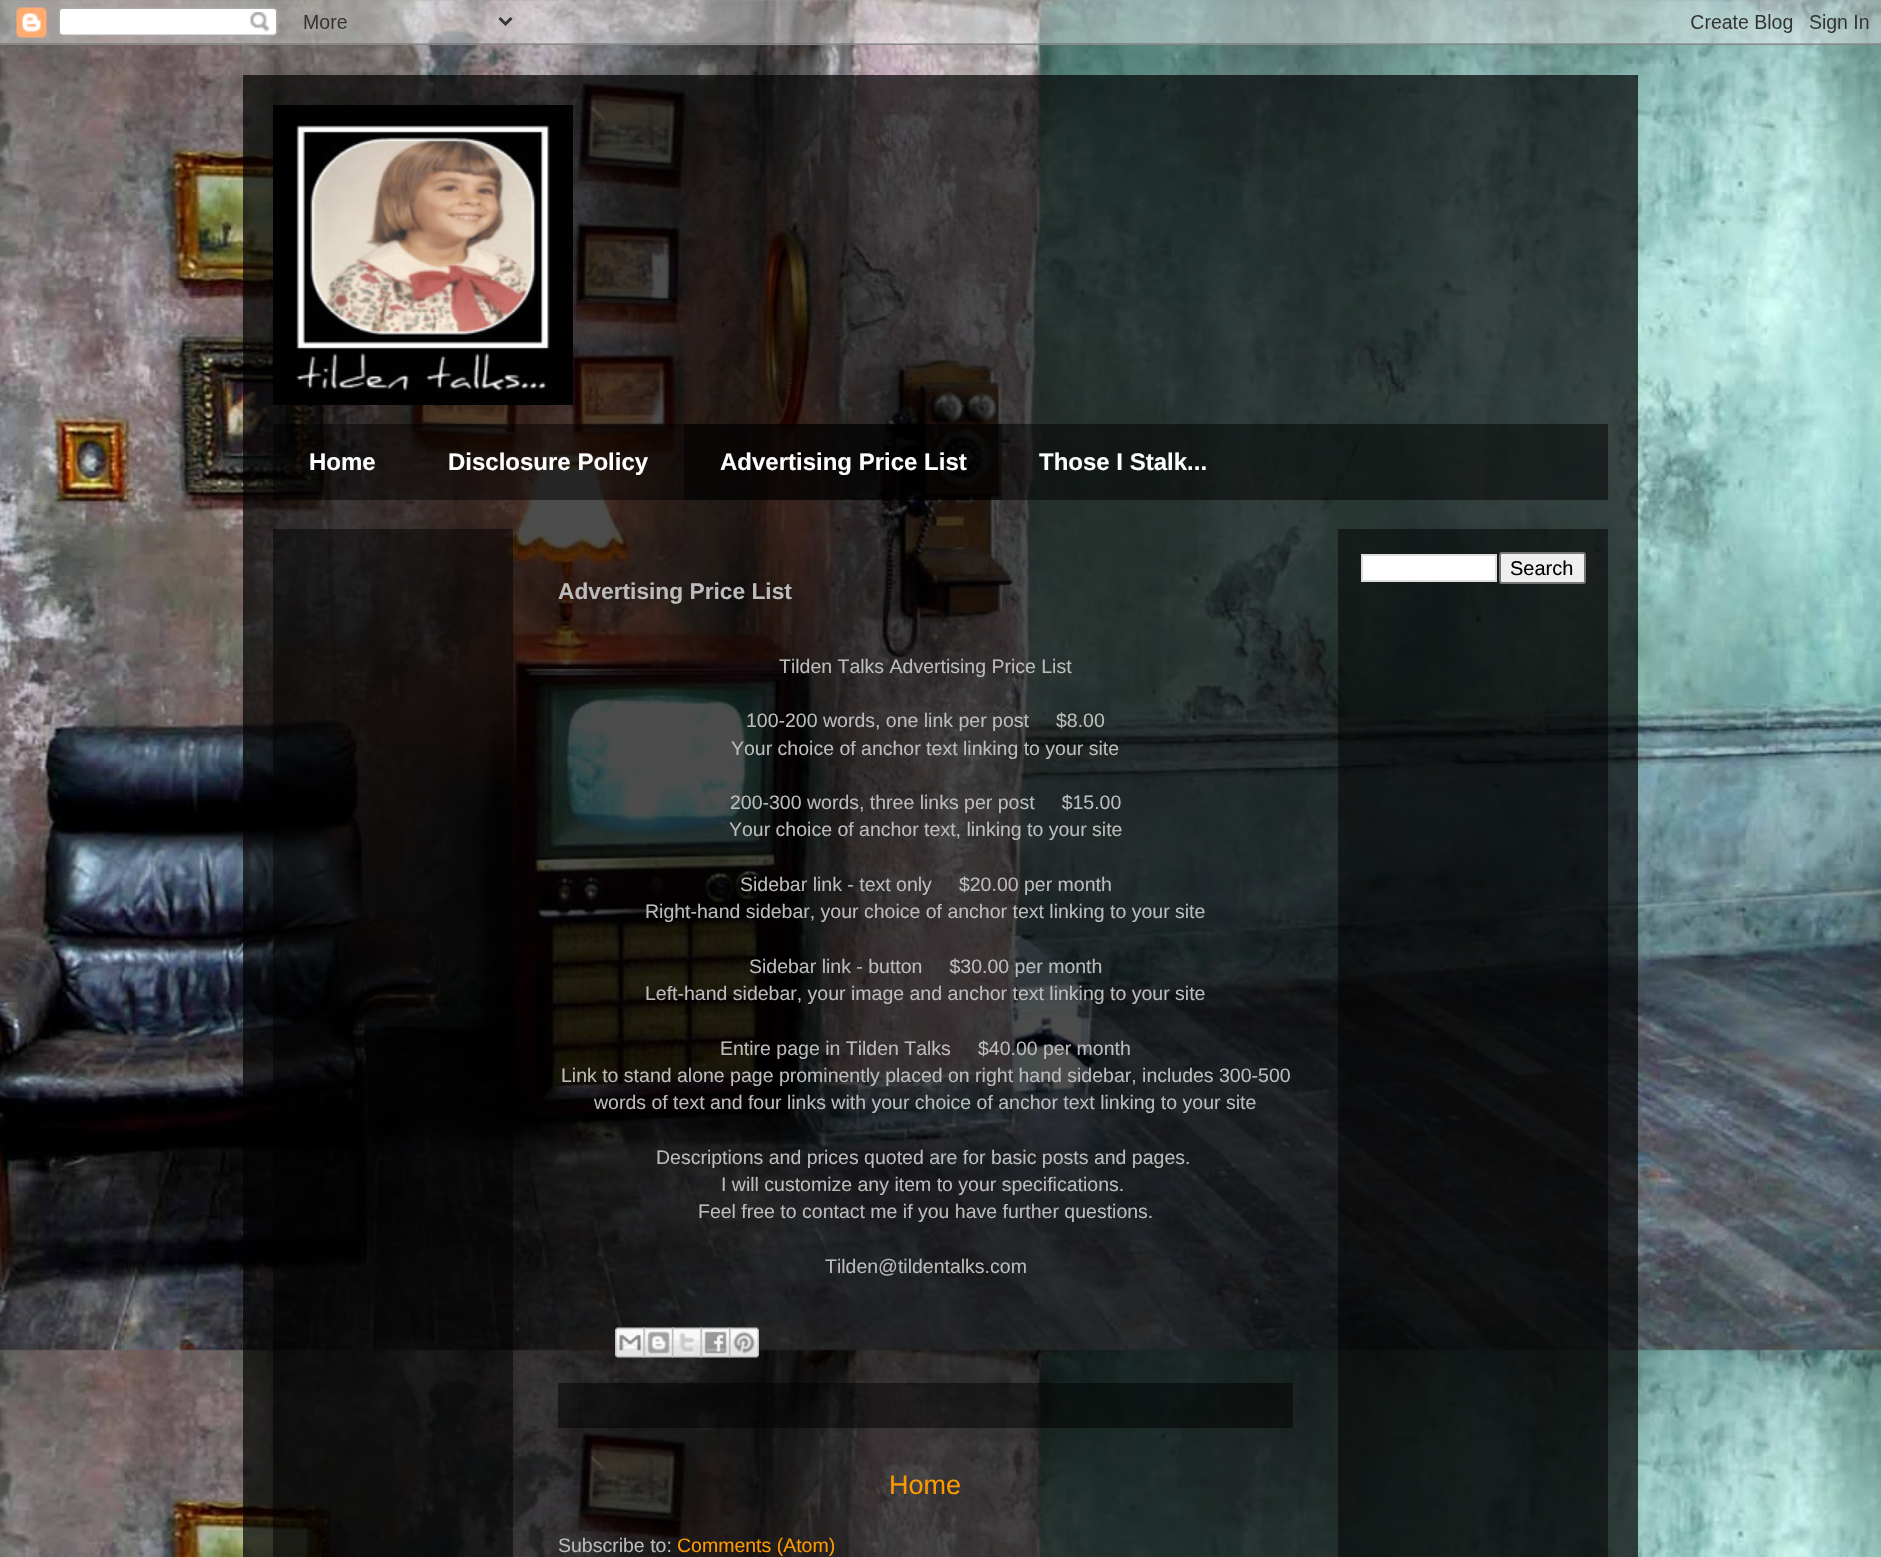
void draw(SkCanvas* canvas) {
    SkPaint paint;
    paint.setAntiAlias(true);
    auto face = [&](const char* family, int weight, float size, bool italic = false) {
        SkFontStyle style(weight, SkFontStyle::kNormal_Width,
            italic ? SkFontStyle::kItalic_Slant : SkFontStyle::kUpright_Slant);
        SkFont result(fontMgr->matchFamilyStyle(family, style), size);
        result.setSubpixel(true);
        return result;
    };
    auto write = [&](const char* s, float x, float y, const SkFont& font, SkColor color) {
        SkPaint ink(SkColor4f::FromColor(color));
        ink.setAntiAlias(true);
        canvas->drawString(s, x, y, font, ink);
    };
    auto block = [&](float x, float y, float w, float h, SkColor color) {
        SkPaint ink(SkColor4f::FromColor(color));
        ink.setAntiAlias(true);
        canvas->drawRect(SkRect::MakeXYWH(x, y, w, h), ink);
    };
    auto paste = [&](const char* path, float x, float y, float w, float h) {
        auto image = SkImages::DeferredFromEncodedData(SkData::MakeFromFileName(path));
        canvas->drawImageRect(image, SkRect::MakeXYWH(x, y, w, h), SkSamplingOptions());
    };
    canvas->clear(SK_ColorWHITE);
    paste("pic1.png", 0, 0, 1881, 1557);
    paste("pic2.png", 0, 0, 1881, 45);
    block(243, 75, 1395, 1482, SkColorSetARGB(179, 0, 0, 0));
    paste("pic3.png", 273, 105, 300, 300);
    block(273, 424, 1335, 76, SkColorSetARGB(128, 0, 0, 0));
    auto kFont1 = face("Liberation Sans", 700, 24);
    write("Home", 309, 470, kFont1, SK_ColorWHITE);
    write("Disclosure Policy", 448, 470, kFont1, SK_ColorWHITE);
    block(684, 424, 318, 76, SkColorSetARGB(128, 0, 0, 0));
    write("Advertising Price List", 720, 470, kFont1, SK_ColorWHITE);
    write("Those I Stalk...", 1039, 470, kFont1, SK_ColorWHITE);
    block(273, 529, 240, 1028, SkColorSetARGB(128, 0, 0, 0));
    block(1338, 529, 270, 1028, SkColorSetARGB(128, 0, 0, 0));
    paint.setColor(SK_ColorWHITE);
    canvas->drawRect(SkRect::MakeXYWH(1362, 555, 134, 26), paint);
    paint.setStyle(SkPaint::kStroke_Style);
    paint.setStrokeWidth(2);
    paint.setColor(SkColorSetRGB(221, 221, 221));
    canvas->drawRect(SkRect::MakeXYWH(1362, 555, 134, 26), paint);
    paint.setStyle(SkPaint::kFill_Style);
    paint.setColor(SkColorSetRGB(239, 239, 239));
    canvas->drawRoundRect(SkRect::MakeXYWH(1500, 553, 85, 30), 2, 2, paint);
    paint.setStyle(SkPaint::kStroke_Style);
    paint.setColor(SkColorSetRGB(118, 118, 118));
    canvas->drawRoundRect(SkRect::MakeXYWH(1500, 553, 85, 30), 2, 2, paint);
    auto kFont2 = face("Liberation Sans", 400, 20);
    write("Search", 1510, 575, kFont2, SK_ColorBLACK);
    auto kFont3 = face("Liberation Sans", 700, 22.75f);
    write("Advertising Price List", 558, 599, kFont3, SkColorSetRGB(187, 187, 187));
    auto kFont4 = face("Liberation Sans", 400, 19.5f);
    write("Tilden Talks Advertising Price List", 779, 673, kFont4, SkColorSetRGB(187, 187, 187));
    write("100-200 words, one link per post     $8.00", 746, 727, kFont4, SkColorSetRGB(187, 187, 187));
    write("Your choice of anchor text linking to your site", 731, 755, kFont4, SkColorSetRGB(187, 187, 187));
    write("200-300 words, three links per post     $15.00", 730, 809, kFont4, SkColorSetRGB(187, 187, 187));
    write("Your choice of anchor text, linking to your site", 729, 836, kFont4, SkColorSetRGB(187, 187, 187));
    write("Sidebar link - text only     $20.00 per month", 740, 891, kFont4, SkColorSetRGB(187, 187, 187));
    write("Right-hand sidebar, your choice of anchor text linking to your site", 645, 918, kFont4, SkColorSetRGB(187, 187, 187));
    write("Sidebar link - button     $30.00 per month", 749, 973, kFont4, SkColorSetRGB(187, 187, 187));
    write("Left-hand sidebar, your image and anchor text linking to your site", 645, 1000, kFont4, SkColorSetRGB(187, 187, 187));
    write("Entire page in Tilden Talks     $40.00 per month", 720, 1055, kFont4, SkColorSetRGB(187, 187, 187));
    write("Link to stand alone page prominently placed on right hand sidebar, includes 300-500", 561, 1082, kFont4, SkColorSetRGB(187, 187, 187));
    write("words of text and four links with your choice of anchor text linking to your site", 594, 1109, kFont4, SkColorSetRGB(187, 187, 187));
    write("Descriptions and prices quoted are for basic posts and pages.", 656, 1164, kFont4, SkColorSetRGB(187, 187, 187));
    write("I will customize any item to your specifications.", 721, 1191, kFont4, SkColorSetRGB(187, 187, 187));
    write("Feel free to contact me if you have further questions.", 698, 1218, kFont4, SkColorSetRGB(187, 187, 187));
    write("Tilden@tildentalks.com", 825, 1273, kFont4, SkColorSetRGB(187, 187, 187));
    paste("pic4.png", 615, 1327, 30, 31);
    paste("pic5.png", 643, 1327, 31, 31);
    paste("pic6.png", 672, 1327, 30, 31);
    paste("pic7.png", 700, 1327, 31, 31);
    paste("pic8.png", 729, 1327, 30, 31);
    block(558, 1383, 735, 45, SkColorSetARGB(128, 0, 0, 0));
    auto kFont5 = face("Liberation Sans", 400, 27);
    write("Home", 889, 1494, kFont5, SkColorSetRGB(255, 153, 0));
    write("Subscribe to:", 558, 1552, kFont4, SkColorSetRGB(187, 187, 187));
    write("Comments (Atom)", 677, 1552, kFont4, SkColorSetRGB(255, 153, 0));
}
